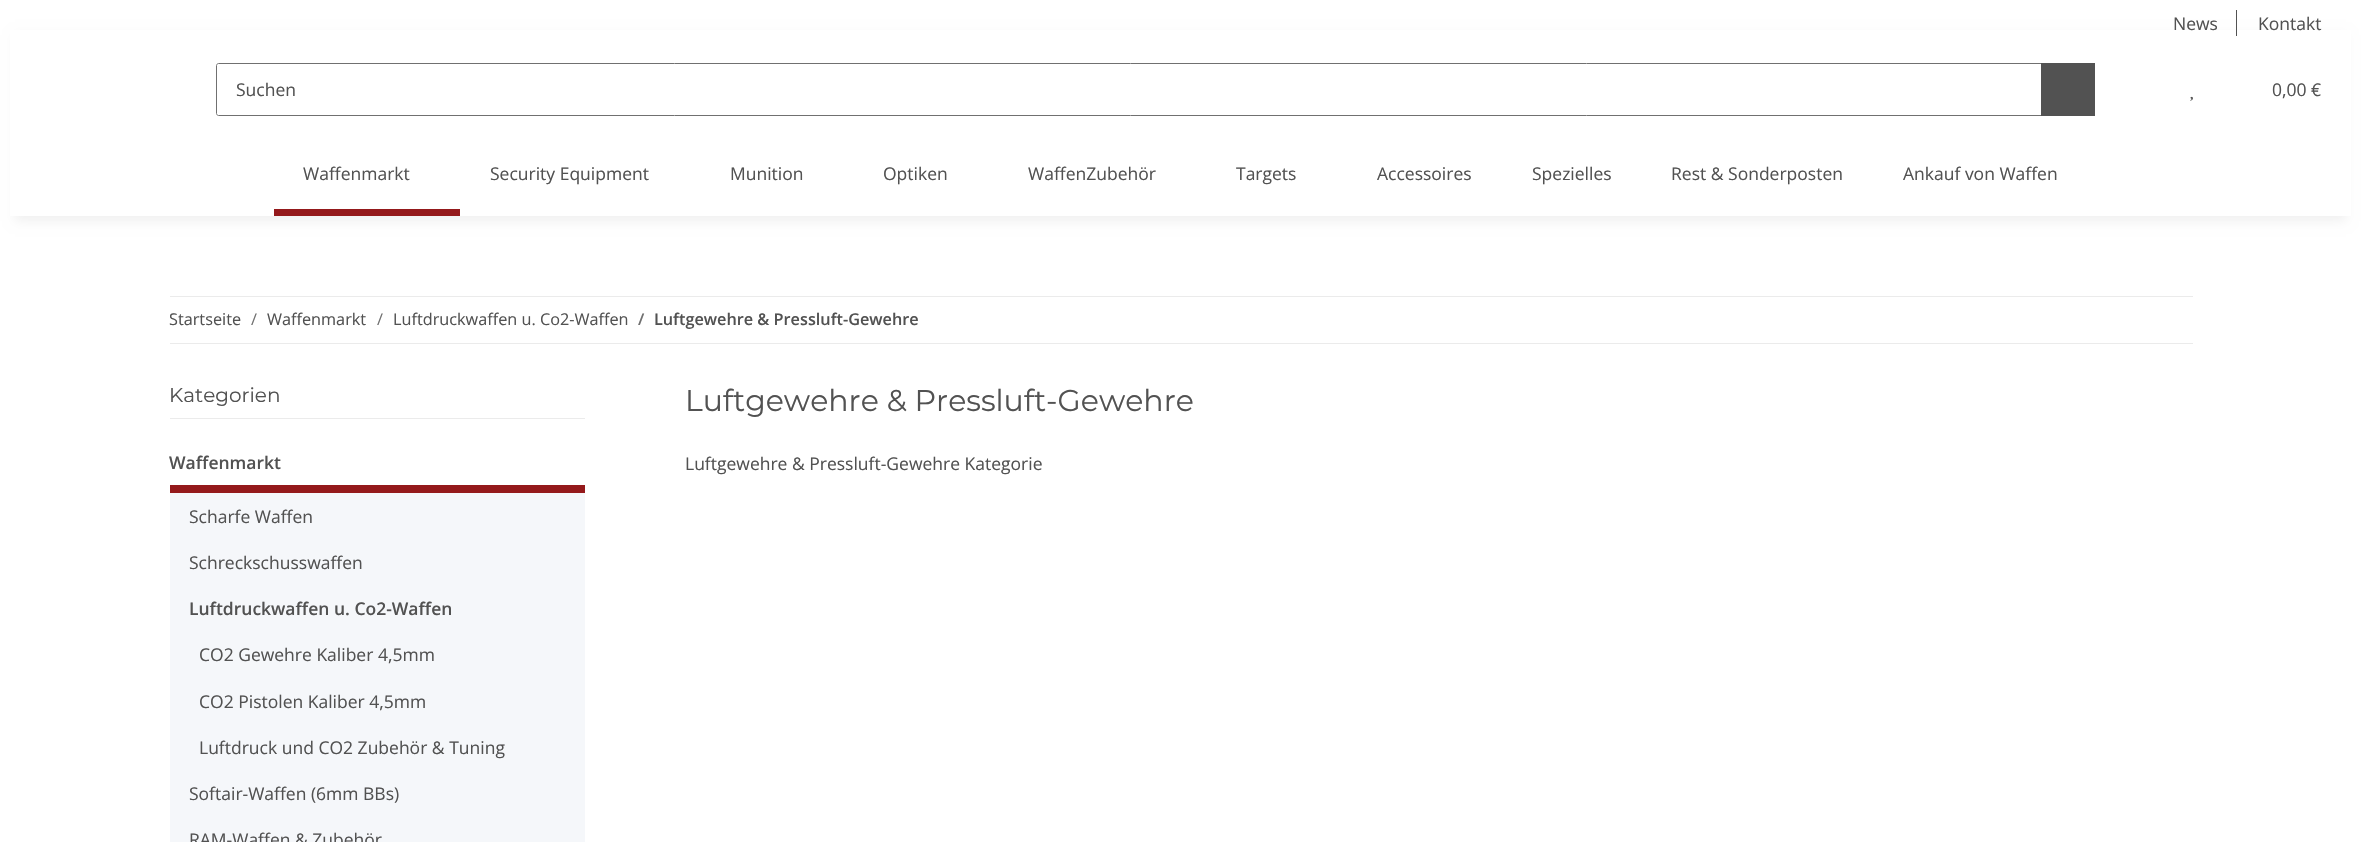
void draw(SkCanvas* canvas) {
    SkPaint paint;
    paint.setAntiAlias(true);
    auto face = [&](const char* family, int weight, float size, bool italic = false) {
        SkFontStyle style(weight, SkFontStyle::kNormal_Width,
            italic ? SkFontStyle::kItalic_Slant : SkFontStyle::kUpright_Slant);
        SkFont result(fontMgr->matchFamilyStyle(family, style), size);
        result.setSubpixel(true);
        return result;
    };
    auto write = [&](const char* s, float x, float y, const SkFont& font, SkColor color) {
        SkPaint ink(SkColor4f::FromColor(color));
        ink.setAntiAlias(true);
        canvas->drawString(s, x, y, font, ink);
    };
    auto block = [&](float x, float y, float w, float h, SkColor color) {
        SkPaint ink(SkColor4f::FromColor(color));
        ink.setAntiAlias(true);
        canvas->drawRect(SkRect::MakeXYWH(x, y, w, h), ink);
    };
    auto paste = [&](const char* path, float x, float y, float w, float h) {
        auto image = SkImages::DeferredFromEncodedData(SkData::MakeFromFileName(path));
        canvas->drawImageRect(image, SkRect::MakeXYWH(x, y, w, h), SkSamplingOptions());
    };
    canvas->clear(SK_ColorWHITE);
    paint.setColor(SkColorSetARGB(15, 0, 0, 0));
    paint.setMaskFilter(SkMaskFilter::MakeBlur(kNormal_SkBlurStyle, 5.5f));
    canvas->drawRect(SkRect::MakeXYWH(15, 35, 2331, 186), paint);
    paint.setMaskFilter(nullptr);
    block(10, 30, 2341, 186, SK_ColorWHITE);
    auto kFont1 = face("Open Sans", 400, 17.5f);
    write("News", 2173, 30, kFont1, SkColorSetRGB(82, 82, 82));
    block(2236, 10, 1, 26, SkColorSetRGB(82, 82, 82));
    write("Kontakt", 2258, 30, kFont1, SkColorSetRGB(82, 82, 82));
    paint.setStyle(SkPaint::kStroke_Style);
    paint.setStrokeWidth(1);
    paint.setColor(SkColorSetRGB(112, 112, 112));
    canvas->drawPath(SkPathBuilder().moveTo(218.5f, 63.5f).lineTo(2042.5f, 63.5f).lineTo(2042.5f, 115.5f).lineTo(218.5f, 115.5f).cubicTo(217.5f, 115.5f, 216.5f, 114.5f, 216.5f, 113.5f).lineTo(216.5f, 65.5f).cubicTo(216.5f, 64.5f, 217.5f, 63.5f, 218.5f, 63.5f).close().detach(), paint);
    write("Suchen", 236, 96, kFont1, SkColorSetRGB(82, 82, 82));
    block(2041, 63, 54, 53, SkColorSetRGB(82, 82, 82));
    paste("pic1.png", 2190, 96, 3, 5);
    write("0,00 €", 2272, 96, kFont1, SkColorSetRGB(82, 82, 82));
    write("Waffenmarkt", 303, 180, kFont1, SkColorSetRGB(82, 82, 82));
    block(274, 209, 186, 7, SkColorSetRGB(148, 25, 27));
    write("Security Equipment", 490, 180, kFont1, SkColorSetRGB(82, 82, 82));
    write("Munition", 730, 180, kFont1, SkColorSetRGB(82, 82, 82));
    write("Optiken", 883, 180, kFont1, SkColorSetRGB(82, 82, 82));
    write("WaffenZubehör", 1028, 180, kFont1, SkColorSetRGB(82, 82, 82));
    write("Targets", 1236, 180, kFont1, SkColorSetRGB(82, 82, 82));
    write("Accessoires", 1377, 180, kFont1, SkColorSetRGB(82, 82, 82));
    write("Spezielles", 1532, 180, kFont1, SkColorSetRGB(82, 82, 82));
    write("Rest & Sonderposten", 1671, 180, kFont1, SkColorSetRGB(82, 82, 82));
    write("Ankauf von Waffen", 1903, 180, kFont1, SkColorSetRGB(82, 82, 82));
    block(170, 296, 2023, 1, SkColorSetRGB(235, 235, 235));
    block(170, 343, 2023, 1, SkColorSetRGB(235, 235, 235));
    auto kFont2 = face("Open Sans", 400, 16.25f);
    write("Startseite", 169, 325, kFont2, SkColorSetRGB(82, 82, 82));
    write("/", 251, 325, kFont2, SkColorSetRGB(112, 112, 112));
    write("Waffenmarkt", 267, 325, kFont2, SkColorSetRGB(82, 82, 82));
    write("/", 377, 325, kFont2, SkColorSetRGB(112, 112, 112));
    write("Luftdruckwaffen u. Co2-Waffen", 393, 325, kFont2, SkColorSetRGB(82, 82, 82));
    auto kFont3 = face("Open Sans", 600, 16.25f);
    write("/", 638, 325, kFont3, SkColorSetRGB(112, 112, 112));
    write("Luftgewehre & Pressluft-Gewehre", 654, 325, kFont3, SkColorSetRGB(82, 82, 82));
    block(170, 418, 415, 1, SkColorSetRGB(235, 235, 235));
    auto kFont4 = face("Montserrat", 400, 20);
    write("Kategorien", 169, 402, kFont4, SkColorSetRGB(82, 82, 82));
    block(170, 485, 415, 8, SkColorSetRGB(148, 25, 27));
    auto kFont5 = face("Open Sans", 600, 17.5f);
    write("Waffenmarkt", 169, 469, kFont5, SkColorSetRGB(82, 82, 82));
    block(170, 493, 415, 349, SkColorSetRGB(245, 247, 250));
    write("Scharfe Waffen", 189, 523, kFont1, SkColorSetRGB(82, 82, 82));
    write("Schreckschusswaffen", 189, 569, kFont1, SkColorSetRGB(82, 82, 82));
    write("Luftdruckwaffen u. Co2-Waffen", 189, 615, kFont5, SkColorSetRGB(82, 82, 82));
    write("CO2 Gewehre Kaliber 4,5mm", 199, 661, kFont1, SkColorSetRGB(82, 82, 82));
    write("CO2 Pistolen Kaliber 4,5mm", 199, 708, kFont1, SkColorSetRGB(82, 82, 82));
    write("Luftdruck und CO2 Zubehör & Tuning", 199, 754, kFont1, SkColorSetRGB(82, 82, 82));
    write("Softair-Waffen (6mm BBs)", 189, 800, kFont1, SkColorSetRGB(82, 82, 82));
    write("RAM-Waffen & Zubehör", 189, 846, kFont1, SkColorSetRGB(82, 82, 82));
    auto kFont6 = face("Montserrat", 400, 30);
    write("Luftgewehre & Pressluft-Gewehre", 685, 411, kFont6, SkColorSetRGB(82, 82, 82));
    write("Luftgewehre & Pressluft-Gewehre Kategorie", 685, 470, kFont1, SkColorSetRGB(82, 82, 82));
}
